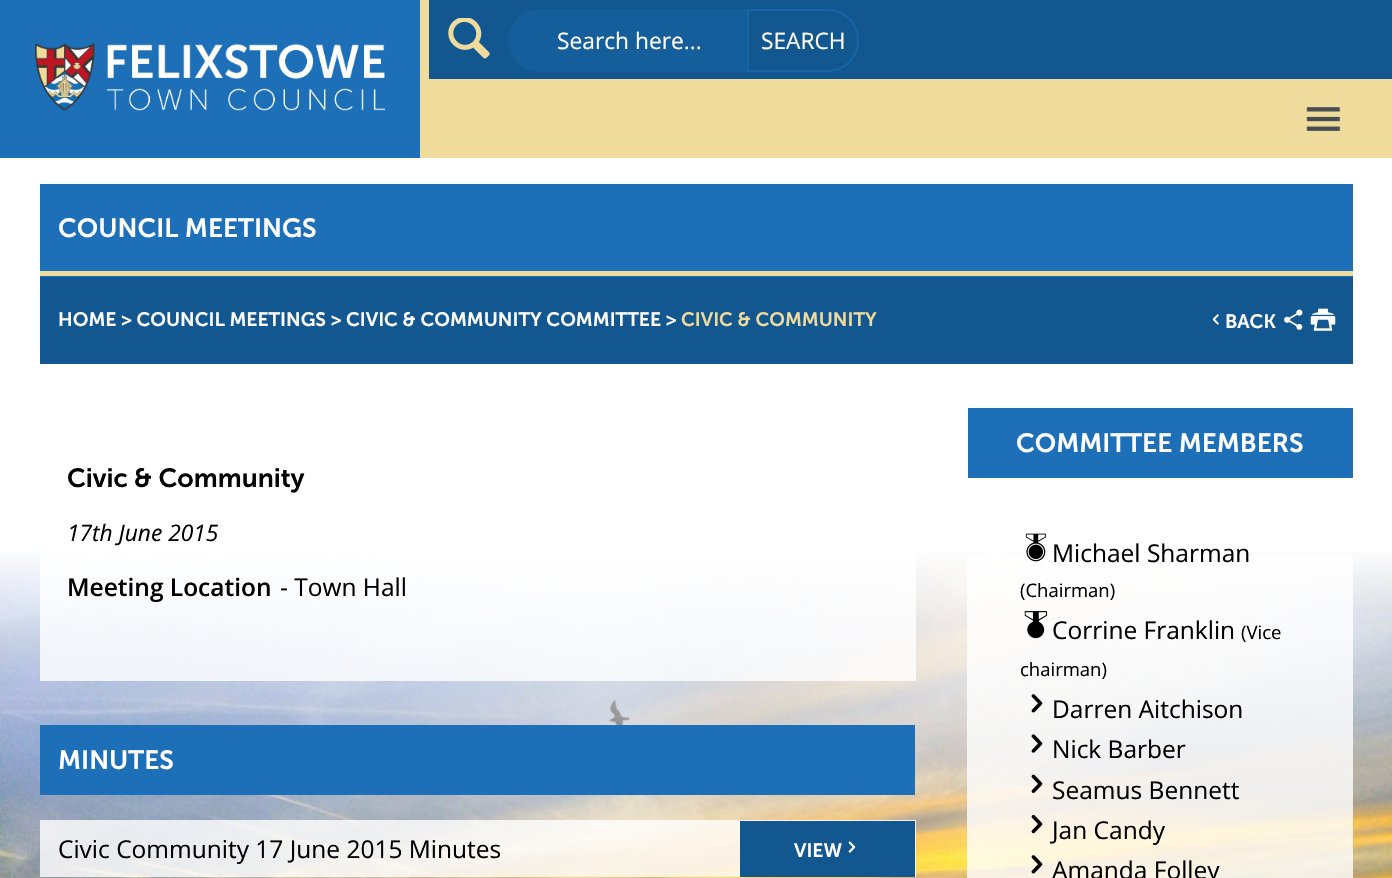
void draw(SkCanvas* canvas) {
    SkPaint paint;
    paint.setAntiAlias(true);
    auto face = [&](const char* family, int weight, float size, bool italic = false) {
        SkFontStyle style(weight, SkFontStyle::kNormal_Width,
            italic ? SkFontStyle::kItalic_Slant : SkFontStyle::kUpright_Slant);
        SkFont result(fontMgr->matchFamilyStyle(family, style), size);
        result.setSubpixel(true);
        return result;
    };
    auto write = [&](const char* s, float x, float y, const SkFont& font, SkColor color) {
        SkPaint ink(SkColor4f::FromColor(color));
        ink.setAntiAlias(true);
        canvas->drawString(s, x, y, font, ink);
    };
    auto block = [&](float x, float y, float w, float h, SkColor color) {
        SkPaint ink(SkColor4f::FromColor(color));
        ink.setAntiAlias(true);
        canvas->drawRect(SkRect::MakeXYWH(x, y, w, h), ink);
    };
    auto paste = [&](const char* path, float x, float y, float w, float h) {
        auto image = SkImages::DeferredFromEncodedData(SkData::MakeFromFileName(path));
        canvas->drawImageRect(image, SkRect::MakeXYWH(x, y, w, h), SkSamplingOptions());
    };
    canvas->clear(SK_ColorWHITE);
    block(429, 79, 963, 79, SkColorSetRGB(239, 219, 155));
    block(0, 0, 420, 158, SkColorSetRGB(29, 111, 183));
    block(420, 0, 9, 158, SkColorSetRGB(239, 219, 155));
    paste("pic1.png", 35, 43, 350, 68);
    block(429, 0, 963, 79, SkColorSetRGB(19, 87, 145));
    paste("pic2.png", 448, 18, 42, 41);
    paint.setColor(SkColorSetRGB(20, 94, 156));
    canvas->drawPath(SkPathBuilder().moveTo(539.5f, 9).lineTo(747, 9).lineTo(747, 72).lineTo(539.5f, 72).cubicTo(522, 72, 508, 58, 508, 40.5f).cubicTo(508, 23, 522, 9, 539.5f, 9).close().detach(), paint);
    auto kFont1 = face("Open Sans", 400, 22.75f);
    write("Search here...", 557, 49, kFont1, SK_ColorWHITE);
    paint.setStyle(SkPaint::kStroke_Style);
    paint.setStrokeWidth(2);
    paint.setColor(SkColorSetRGB(22, 101, 168));
    canvas->drawPath(SkPathBuilder().moveTo(748, 10).lineTo(827.5f, 10).cubicTo(844.5f, 10, 858, 23.5f, 858, 40.5f).cubicTo(858, 57.5f, 844.5f, 71, 827.5f, 71).lineTo(748, 71).close().detach(), paint);
    write("SEARCH", 761, 49, kFont1, SK_ColorWHITE);
    paste("pic3.png", 1306, 107, 35, 24);
    paste("pic4.png", 0, 552, 1392, 326);
    block(40, 184, 1313, 93, SkColorSetRGB(29, 111, 183));
    block(40, 271, 1313, 5, SkColorSetRGB(239, 219, 155));
    auto kFont2 = face("Museo Sans", 600, 26.25f);
    write("COUNCIL MEETINGS", 58, 237, kFont2, SK_ColorWHITE);
    block(40, 277, 1313, 87, SkColorSetRGB(19, 87, 145));
    auto kFont3 = face("Museo Sans", 600, 19.25f);
    write("HOME > COUNCIL MEETINGS > CIVIC & COMMUNITY COMMITTEE >", 58, 326, kFont3, SK_ColorWHITE);
    write("CIVIC & COMMUNITY", 681, 326, kFont3, SkColorSetRGB(239, 219, 155));
    paste("pic5.png", 1212, 314, 7, 11);
    write("BACK", 1225, 328, kFont3, SK_ColorWHITE);
    paste("pic6.png", 1284, 309, 19, 21);
    paste("pic7.png", 1310, 308, 26, 23);
    block(40, 552, 876, 129, SkColorSetARGB(204, 255, 255, 255));
    write("Civic & Community", 67, 487, kFont2, SK_ColorBLACK);
    auto kFont4 = face("Open Sans", 400, 22.75f, true);
    write("17th June 2015", 67, 541, kFont4, SK_ColorBLACK);
    auto kFont5 = face("Open Sans", 600, 24.5f);
    write("Meeting Location", 67, 596, kFont5, SK_ColorBLACK);
    auto kFont6 = face("Open Sans", 400, 24.5f);
    write("- Town Hall", 280, 596, kFont6, SK_ColorBLACK);
    block(40, 725, 875, 70, SkColorSetRGB(29, 111, 183));
    write("MINUTES", 58, 769, kFont2, SK_ColorWHITE);
    block(40, 820, 876, 57, SkColorSetARGB(204, 255, 255, 255));
    write("Civic Community 17 June 2015 Minutes", 58, 858, kFont6, SK_ColorBLACK);
    block(740, 821, 175, 56, SkColorSetRGB(19, 87, 145));
    write("VIEW", 794, 857, kFont3, SK_ColorWHITE);
    paste("pic8.png", 848, 841, 8, 12);
    block(967, 555, 386, 323, SkColorSetARGB(204, 255, 255, 255));
    block(968, 408, 385, 70, SkColorSetRGB(29, 111, 183));
    write("COMMITTEE MEMBERS", 1016, 452, kFont2, SK_ColorWHITE);
    paste("pic9.png", 1025, 533, 21, 29);
    write("Michael Sharman", 1052, 562, kFont6, SK_ColorBLACK);
    auto kFont7 = face("Open Sans", 400, 18.5f);
    write("(Chairman)", 1020, 597, kFont7, SK_ColorBLACK);
    paste("pic10.png", 1024, 611, 24, 28);
    write("Corrine Franklin", 1052, 639, kFont6, SK_ColorBLACK);
    write("(Vice", 1241, 639, kFont7, SK_ColorBLACK);
    write("chairman)", 1020, 676, kFont7, SK_ColorBLACK);
    paste("pic11.png", 1031, 694, 12, 19);
    write("Darren Aitchison", 1052, 718, kFont6, SK_ColorBLACK);
    paste("pic12.png", 1031, 734, 12, 19);
    write("Nick Barber", 1052, 758, kFont6, SK_ColorBLACK);
    paste("pic13.png", 1031, 774, 12, 19);
    write("Seamus Bennett", 1052, 799, kFont6, SK_ColorBLACK);
    paste("pic14.png", 1031, 815, 12, 19);
    write("Jan Candy", 1052, 839, kFont6, SK_ColorBLACK);
    paste("pic15.png", 1031, 855, 12, 19);
    write("Amanda Folley", 1052, 879, kFont6, SK_ColorBLACK);
}
